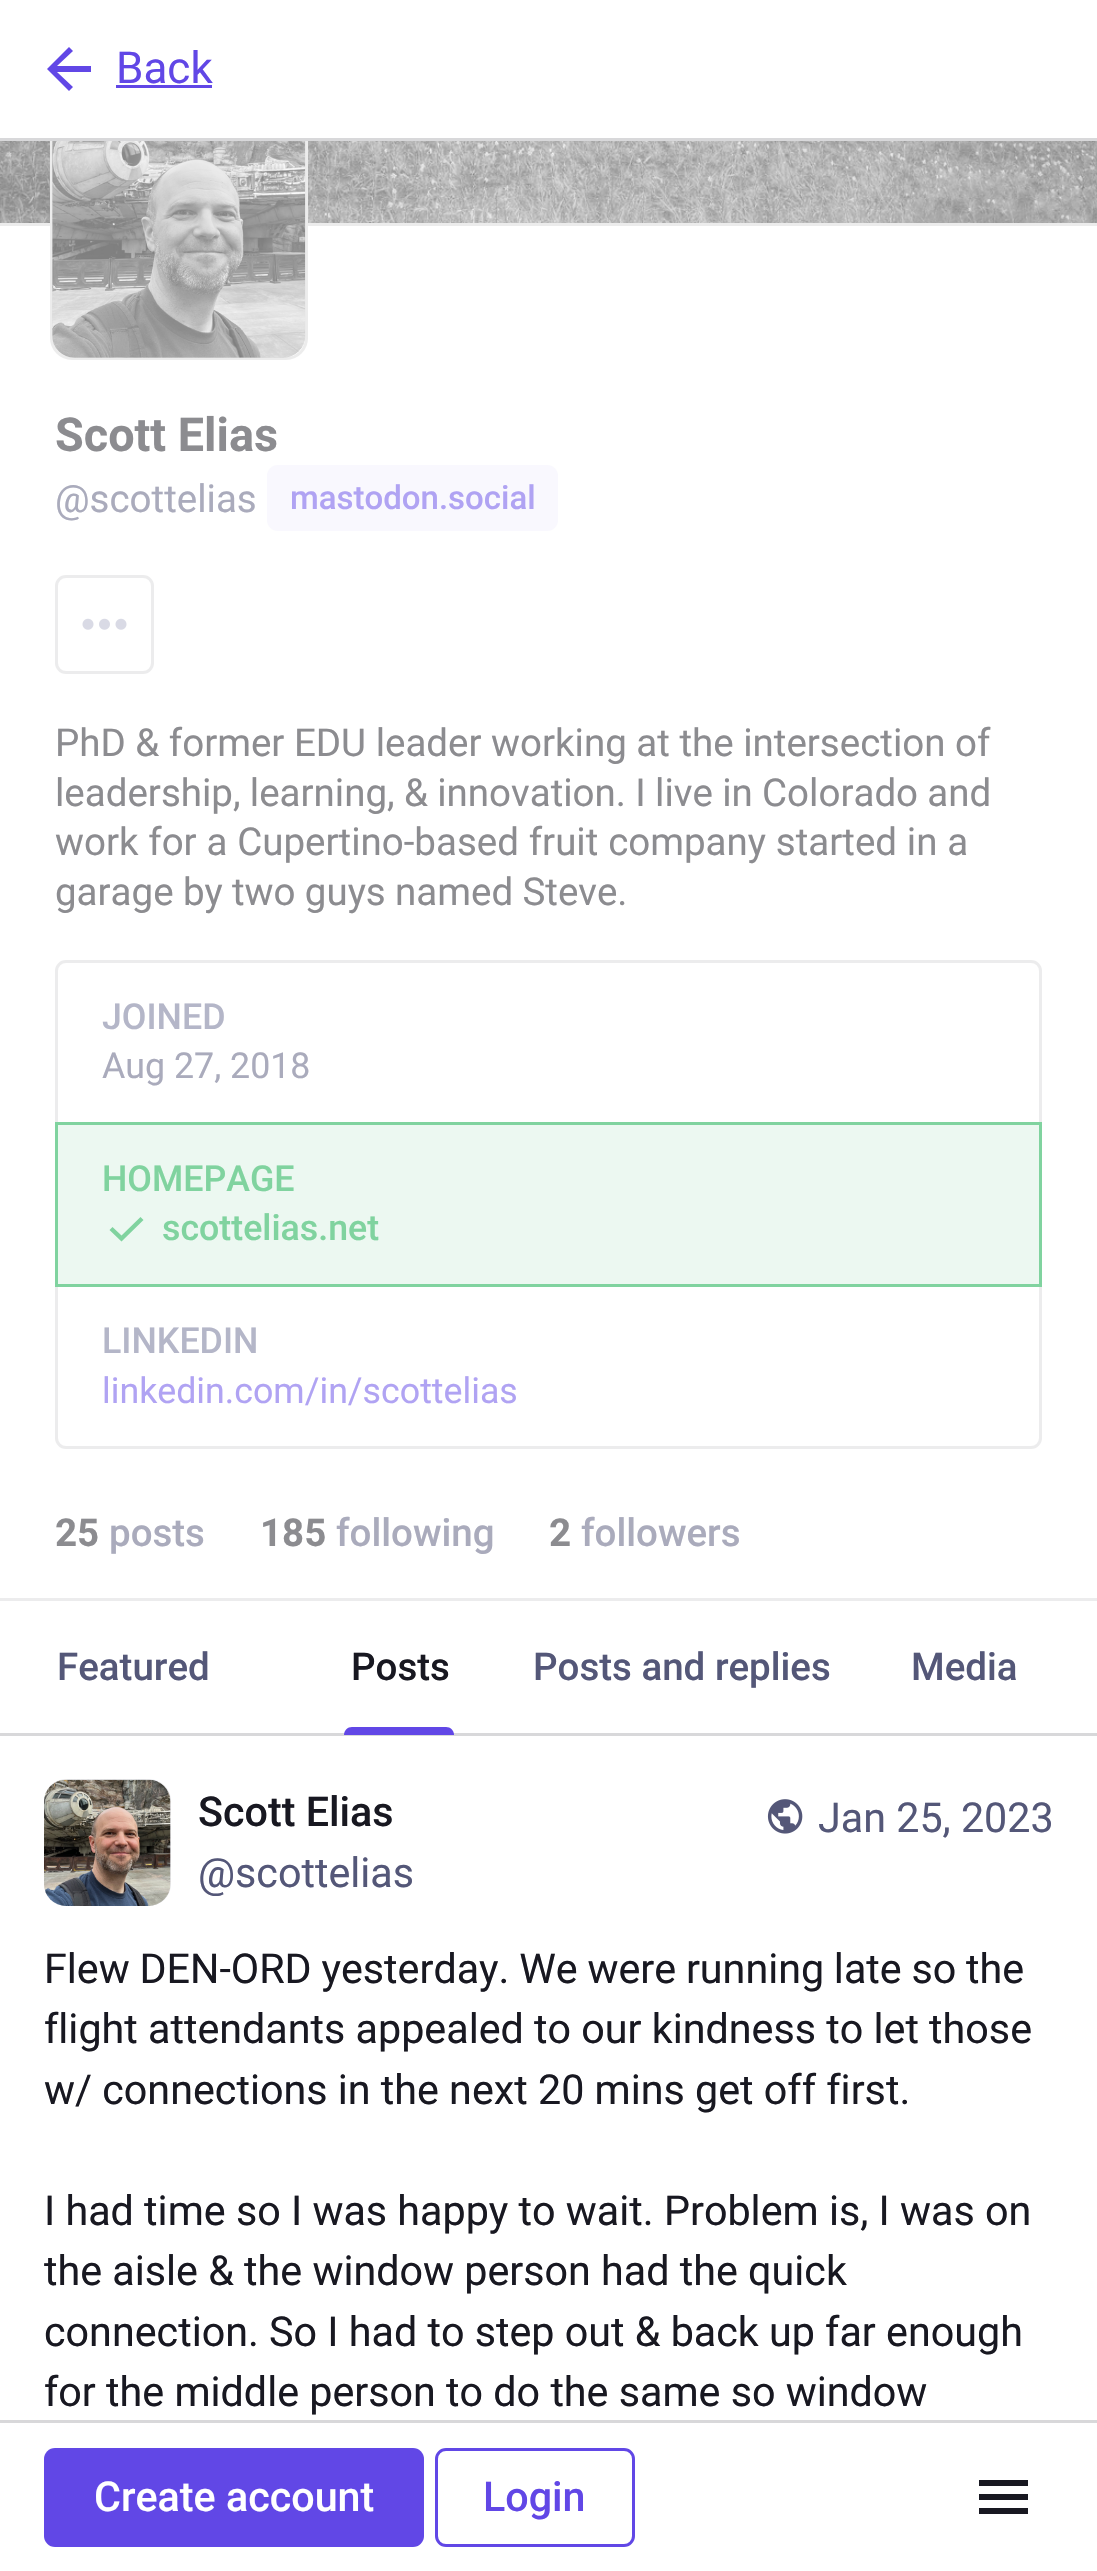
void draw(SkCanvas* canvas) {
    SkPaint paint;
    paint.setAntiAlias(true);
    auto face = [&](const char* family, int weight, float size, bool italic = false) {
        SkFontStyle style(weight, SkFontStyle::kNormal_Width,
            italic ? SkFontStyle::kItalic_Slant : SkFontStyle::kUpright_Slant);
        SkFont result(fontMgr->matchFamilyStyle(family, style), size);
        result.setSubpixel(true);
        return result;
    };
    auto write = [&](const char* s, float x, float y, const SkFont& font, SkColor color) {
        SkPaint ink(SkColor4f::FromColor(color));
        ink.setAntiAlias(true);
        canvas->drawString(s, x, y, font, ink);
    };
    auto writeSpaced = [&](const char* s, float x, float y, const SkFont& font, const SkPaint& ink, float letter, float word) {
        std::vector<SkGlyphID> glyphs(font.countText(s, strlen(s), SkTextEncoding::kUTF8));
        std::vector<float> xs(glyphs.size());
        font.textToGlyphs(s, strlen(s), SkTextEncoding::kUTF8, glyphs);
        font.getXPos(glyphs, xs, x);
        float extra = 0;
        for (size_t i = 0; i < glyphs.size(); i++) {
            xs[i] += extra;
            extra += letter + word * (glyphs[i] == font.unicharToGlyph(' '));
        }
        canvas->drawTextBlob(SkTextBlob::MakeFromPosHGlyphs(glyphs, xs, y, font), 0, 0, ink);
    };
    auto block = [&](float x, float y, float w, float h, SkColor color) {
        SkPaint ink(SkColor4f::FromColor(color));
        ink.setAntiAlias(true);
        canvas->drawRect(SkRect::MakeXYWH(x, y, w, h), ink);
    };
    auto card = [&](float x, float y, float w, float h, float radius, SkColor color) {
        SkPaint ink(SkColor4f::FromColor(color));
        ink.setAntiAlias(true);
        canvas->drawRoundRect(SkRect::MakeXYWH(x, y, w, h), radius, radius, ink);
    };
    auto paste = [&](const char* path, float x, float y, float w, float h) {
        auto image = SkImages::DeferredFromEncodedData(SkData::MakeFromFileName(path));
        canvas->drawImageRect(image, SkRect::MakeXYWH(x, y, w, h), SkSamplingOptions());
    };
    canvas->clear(SK_ColorWHITE);
    block(0, 141, 1097, 82, SkColorSetRGB(246, 246, 246));
    block(0, 223, 1097, 3, SkColorSetRGB(236, 236, 236));
    paste("pic1.png", 0, 141, 1097, 82);
    paint.setColor(SK_ColorWHITE);
    canvas->drawRoundRect(SkRect::MakeXYWH(51.5f, 103.5f, 255, 255), 20.5f, 20.5f, paint);
    paint.setStyle(SkPaint::kStroke_Style);
    paint.setStrokeWidth(3);
    paint.setColor(SkColorSetRGB(236, 236, 236));
    canvas->drawRoundRect(SkRect::MakeXYWH(51.5f, 103.5f, 255, 255), 20.5f, 20.5f, paint);
    block(50, 102, 258, 36, SK_ColorWHITE);
    block(0, 138, 1097, 3, SkColorSetRGB(216, 216, 218));
    paint.setStyle(SkPaint::kFill_Style);
    paint.setColor(SkColorSetRGB(97, 71, 230));
    canvas->drawPath(SkPathBuilder().moveTo(57, 72).lineTo(73, 87).lineTo(69, 91).lineTo(47, 69).lineTo(69, 47).lineTo(73, 51).lineTo(57, 66).lineTo(91, 66).lineTo(91, 72).close().detach(), paint);
    auto kFont1 = face("Roboto", 400, 44);
    write("Back", 116, 83, kFont1, SkColorSetRGB(97, 71, 230));
    block(116, 85, 96, 3, SkColorSetRGB(97, 71, 230));
    block(0, 1598, 1097, 3, SkColorSetRGB(236, 236, 237));
    paste("pic2.png", 52, 141, 254, 217);
    auto kFont2 = face("Roboto", 700, 46.75f);
    write("Scott Elias", 55, 451, kFont2, SkColorSetRGB(140, 140, 144));
    auto kFont3 = face("Roboto", 400, 38.5f);
    write("@scottelias", 55, 512, kFont3, SkColorSetRGB(170, 171, 188));
    card(267, 465, 291, 66, 11, SkColorSetRGB(249, 248, 254));
    auto kFont4 = face("Roboto", 500, 33);
    write("mastodon.social", 290, 509, kFont4, SkColorSetRGB(176, 163, 243));
    paint.setStyle(SkPaint::kStroke_Style);
    paint.setColor(SkColorSetRGB(236, 236, 237));
    canvas->drawRoundRect(SkRect::MakeXYWH(56.5f, 576.5f, 96, 96), 9.5f, 9.5f, paint);
    paste("pic3.png", 82, 618, 45, 12);
    write("PhD & former EDU leader working at the intersection of", 55, 756, kFont3, SkColorSetRGB(140, 140, 144));
    paint.setStyle(SkPaint::kFill_Style);
    paint.setColor(SkColorSetRGB(140, 140, 144));
    writeSpaced("leadership, learning, & innovation. I live in Colorado and", 55, 806, kFont3, paint, 0, -0.25f);
    writeSpaced("work for a Cupertino-based fruit company started in a", 55, 855, kFont3, paint, 0, 0.25f);
    writeSpaced("garage by two guys named Steve.", 55, 905, kFont3, paint, 0, -0.25f);
    paint.setStyle(SkPaint::kStroke_Style);
    paint.setColor(SkColorSetRGB(236, 236, 237));
    canvas->drawRoundRect(SkRect::MakeXYWH(56.5f, 961.5f, 984, 486), 9.5f, 9.5f, paint);
    auto kFont5 = face("Roboto", 500, 35.75f);
    write("JOINED", 102, 1029, kFont5, SkColorSetRGB(180, 182, 200));
    auto kFont6 = face("Roboto", 400, 35.75f);
    write("Aug 27, 2018", 102, 1078, kFont6, SkColorSetRGB(170, 171, 188));
    paint.setStyle(SkPaint::kFill_Style);
    paint.setColor(SkColorSetARGB(38, 128, 211, 159));
    canvas->drawRect(SkRect::MakeXYWH(56.5f, 1123.5f, 984, 162), paint);
    paint.setStyle(SkPaint::kStroke_Style);
    paint.setColor(SkColorSetRGB(128, 211, 159));
    canvas->drawRect(SkRect::MakeXYWH(56.5f, 1123.5f, 984, 162), paint);
    write("HOMEPAGE", 102, 1191, kFont5, SkColorSetRGB(128, 211, 159));
    paint.setStyle(SkPaint::kFill_Style);
    canvas->drawPath(SkPathBuilder().moveTo(121.5f, 1241.5f).lineTo(109.5f, 1230).lineTo(112.5f, 1227).lineTo(121.5f, 1235.5f).lineTo(140.5f, 1217).lineTo(143.5f, 1220).close().detach(), paint);
    write("scottelias.net", 162, 1240, kFont5, SkColorSetRGB(128, 211, 159));
    write("LINKEDIN", 102, 1353, kFont5, SkColorSetRGB(180, 182, 200));
    write("linkedin.com/in/scottelias", 102, 1403, kFont6, SkColorSetRGB(176, 163, 243));
    auto kFont7 = face("Roboto", 700, 38.5f);
    write("25", 55, 1546, kFont7, SkColorSetRGB(140, 140, 144));
    auto kFont8 = face("Roboto", 500, 38.5f);
    write("posts", 109, 1546, kFont8, SkColorSetRGB(170, 171, 188));
    write("185", 260, 1546, kFont7, SkColorSetRGB(140, 140, 144));
    write("following", 336, 1546, kFont8, SkColorSetRGB(170, 171, 188));
    write("2", 549, 1546, kFont7, SkColorSetRGB(140, 140, 144));
    write("followers", 581, 1546, kFont8, SkColorSetRGB(170, 171, 188));
    block(0, 1733, 1097, 3, SkColorSetRGB(216, 216, 218));
    write("Featured", 57, 1680, kFont8, SkColorSetRGB(84, 87, 120));
    write("Posts", 351, 1680, kFont8, SkColorSetRGB(24, 24, 33));
    paint.setColor(SkColorSetRGB(97, 71, 230));
    canvas->drawPath(SkPathBuilder().moveTo(352, 1727).lineTo(446, 1727).cubicTo(450.5f, 1727, 454, 1730.5f, 454, 1735).lineTo(344, 1735).cubicTo(344, 1730.5f, 347.5f, 1727, 352, 1727).close().detach(), paint);
    write("Posts and replies", 533, 1680, kFont8, SkColorSetRGB(84, 87, 120));
    write("Media", 911, 1680, kFont8, SkColorSetRGB(84, 87, 120));
    card(44, 1779, 127, 127, 22, SkColorSetRGB(236, 237, 241));
    paste("pic4.png", 44, 1779, 127, 127);
    auto kFont9 = face("Roboto", 500, 41.25f);
    write("Scott Elias", 198, 1826, kFont9, SkColorSetRGB(24, 24, 33));
    auto kFont10 = face("Roboto", 400, 41.25f);
    write("@scottelias", 198, 1887, kFont10, SkColorSetRGB(84, 87, 120));
    paste("pic5.png", 767, 1799, 36, 35);
    write("Jan 25, 2023", 818, 1832, kFont10, SkColorSetRGB(84, 87, 120));
    paint.setColor(SkColorSetRGB(24, 24, 33));
    writeSpaced("Flew DEN-ORD yesterday. We were running late so the", 44, 1983, kFont10, paint, 0, -0.5f);
    write("flight attendants appealed to our kindness to let those", 44, 2043, kFont10, SkColorSetRGB(24, 24, 33));
    write("w/ connections in the next 20 mins get off first.", 44, 2104, kFont10, SkColorSetRGB(24, 24, 33));
    write("I had time so I was happy to wait. Problem is, I was on", 44, 2225, kFont10, SkColorSetRGB(24, 24, 33));
    write("the aisle & the window person had the quick", 44, 2285, kFont10, SkColorSetRGB(24, 24, 33));
    write("connection. So I had to step out & back up far enough", 44, 2346, kFont10, SkColorSetRGB(24, 24, 33));
    write("for the middle person to do the same so window", 44, 2406, kFont10, SkColorSetRGB(24, 24, 33));
    block(0, 2420, 1097, 3, SkColorSetRGB(216, 216, 218));
    card(44, 2448, 380, 99, 11, SkColorSetRGB(97, 71, 230));
    write("Create account", 94, 2511, kFont9, SK_ColorWHITE);
    paint.setStyle(SkPaint::kStroke_Style);
    paint.setColor(SkColorSetRGB(97, 71, 230));
    canvas->drawRoundRect(SkRect::MakeXYWH(436.5f, 2449.5f, 197, 96), 9.5f, 9.5f, paint);
    write("Login", 483, 2511, kFont9, SkColorSetRGB(97, 71, 230));
    paint.setStyle(SkPaint::kFill_Style);
    paint.setColor(SkColorSetRGB(24, 24, 33));
    canvas->drawPath(SkPathBuilder().moveTo(979, 2514).lineTo(979, 2508).lineTo(1028, 2508).lineTo(1028, 2514).close().moveTo(979, 2500).lineTo(979, 2494).lineTo(1028, 2494).lineTo(1028, 2500).close().moveTo(979, 2486).lineTo(979, 2480).lineTo(1028, 2480).lineTo(1028, 2486).close().detach(), paint);
}
